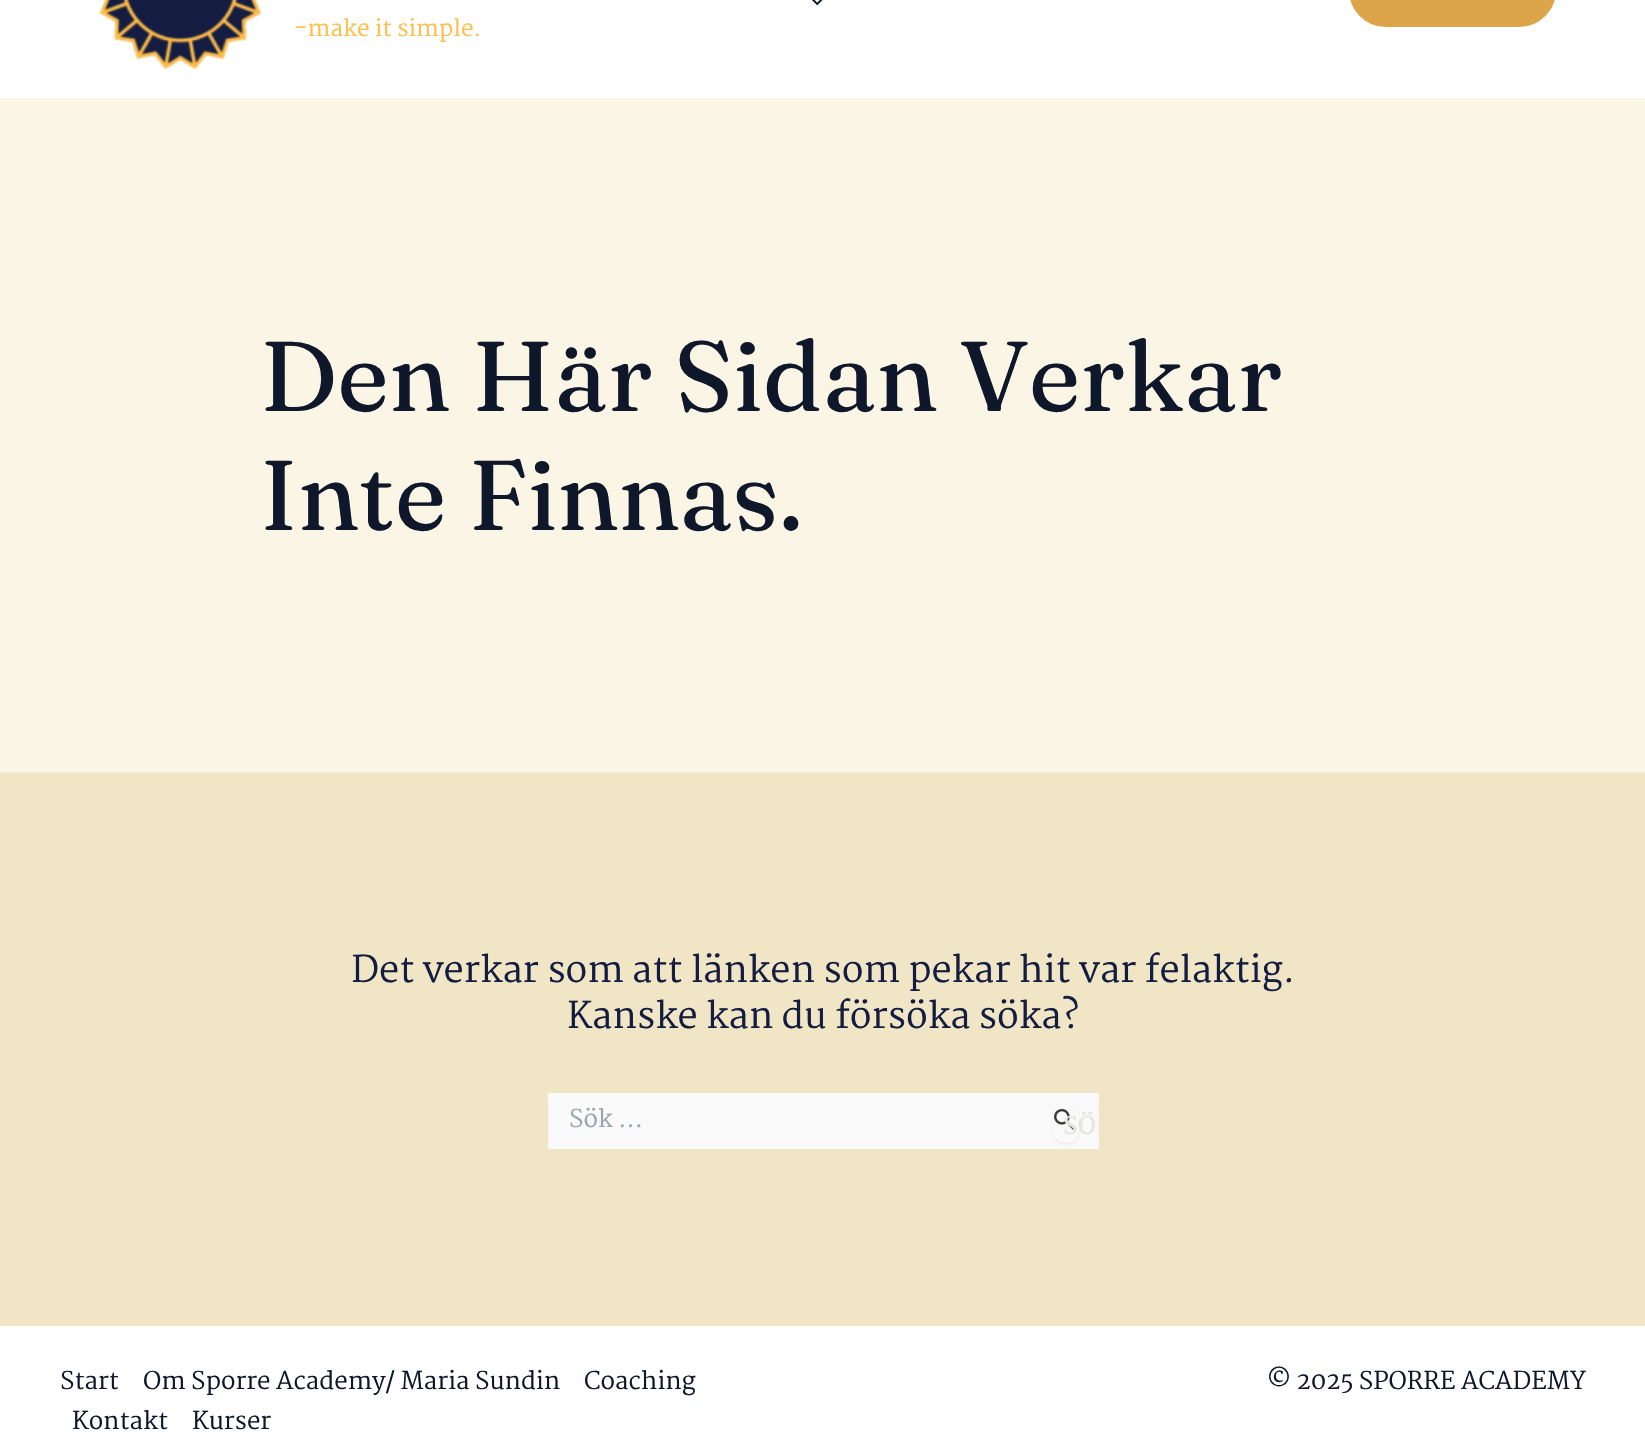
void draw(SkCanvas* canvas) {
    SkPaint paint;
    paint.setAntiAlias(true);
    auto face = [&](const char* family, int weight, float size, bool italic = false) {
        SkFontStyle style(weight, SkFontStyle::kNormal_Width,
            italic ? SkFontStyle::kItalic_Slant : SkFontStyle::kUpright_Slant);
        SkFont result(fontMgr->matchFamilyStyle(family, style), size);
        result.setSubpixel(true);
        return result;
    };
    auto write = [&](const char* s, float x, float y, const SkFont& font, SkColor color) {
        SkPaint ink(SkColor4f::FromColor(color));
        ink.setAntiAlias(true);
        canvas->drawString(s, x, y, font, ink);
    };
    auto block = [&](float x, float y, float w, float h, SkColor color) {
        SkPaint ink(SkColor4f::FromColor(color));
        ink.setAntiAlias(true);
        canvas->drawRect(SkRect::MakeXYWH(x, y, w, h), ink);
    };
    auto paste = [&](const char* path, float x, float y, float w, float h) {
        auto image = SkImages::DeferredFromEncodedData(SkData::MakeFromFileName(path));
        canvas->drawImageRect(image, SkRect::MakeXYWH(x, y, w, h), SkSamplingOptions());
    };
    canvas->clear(SkColorSetRGB(240, 230, 197));
    block(0, 0, 1645, 98, SK_ColorWHITE);
    paint.setColor(SkColorSetRGB(220, 165, 74));
    canvas->drawRoundRect(SkRect::MakeXYWH(1350.5f, -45.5f, 204, 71), 42, 42, paint);
    paint.setStyle(SkPaint::kStroke_Style);
    paint.setStrokeWidth(3);
    canvas->drawRoundRect(SkRect::MakeXYWH(1350.5f, -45.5f, 204, 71), 42, 42, paint);
    paste("pic1.png", 812, 0, 11, 6);
    paste("pic2.png", 98, 0, 164, 70);
    auto kFont1 = face("Martel", 400, 22.5f);
    write("-make it simple.", 294, 36, kFont1, SkColorSetRGB(255, 189, 74));
    block(0, 772, 1645, 1, SkColorSetRGB(238, 238, 238));
    block(0, 98, 1645, 674, SkColorSetRGB(250, 245, 229));
    auto kFont2 = face("Fraunces", 400, 99);
    write("Den Här Sidan Verkar", 260, 411, kFont2, SkColorSetRGB(15, 23, 42));
    write("Inte Finnas.", 260, 530, kFont2, SkColorSetRGB(15, 23, 42));
    auto kFont3 = face("Martel", 400, 36);
    write("Det verkar som att länken som pekar hit var felaktig.", 351, 982, kFont3, SkColorSetRGB(20, 29, 65));
    write("Kanske kan du försöka söka?", 567, 1028, kFont3, SkColorSetRGB(20, 29, 65));
    paint.setStyle(SkPaint::kFill_Style);
    paint.setColor(SkColorSetRGB(250, 250, 250));
    canvas->drawRoundRect(SkRect::MakeXYWH(547, 1092, 553, 58), 2, 2, paint);
    paint.setStyle(SkPaint::kStroke_Style);
    paint.setStrokeWidth(2);
    paint.setColor(SkColorSetRGB(240, 230, 197));
    canvas->drawRoundRect(SkRect::MakeXYWH(547, 1092, 553, 58), 2, 2, paint);
    auto kFont4 = face("Martel", 400, 24);
    write("Sök …", 569, 1127, kFont4, SkColorSetRGB(156, 163, 175));
    canvas->save();
    canvas->clipPath(SkPathBuilder(SkPathFillType::kEvenOdd).moveTo(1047, 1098).lineTo(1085, 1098).lineTo(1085, 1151).lineTo(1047, 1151).close().moveTo(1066, 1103).cubicTo(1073, 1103, 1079, 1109, 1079, 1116).lineTo(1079, 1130).cubicTo(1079, 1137, 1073, 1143, 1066, 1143).cubicTo(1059, 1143, 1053, 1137, 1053, 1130).lineTo(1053, 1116).cubicTo(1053, 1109, 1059, 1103, 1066, 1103).close().detach(), true);
    paint.setStyle(SkPaint::kFill_Style);
    paint.setColor(SkColorSetARGB(13, 0, 0, 0));
    paint.setMaskFilter(SkMaskFilter::MakeBlur(kNormal_SkBlurStyle, 1.5f));
    canvas->drawRoundRect(SkRect::MakeXYWH(1053, 1104, 26, 41), 13, 13, paint);
    paint.setMaskFilter(nullptr);
    canvas->restore();
    paste("pic3.png", 1054, 1109, 21, 21);
    auto kFont5 = face("Martel", 700, 24);
    write("SÖ", 1063, 1134, kFont5, SkColorSetRGB(230, 229, 226));
    block(0, 1326, 1645, 128, SK_ColorWHITE);
    write("Start", 60, 1389, kFont4, SkColorSetRGB(15, 23, 42));
    write("Om Sporre Academy/ Maria Sundin", 143, 1389, kFont4, SkColorSetRGB(15, 23, 42));
    write("Coaching", 584, 1389, kFont4, SkColorSetRGB(15, 23, 42));
    write("Kontakt", 72, 1429, kFont4, SkColorSetRGB(15, 23, 42));
    write("Kurser", 192, 1429, kFont4, SkColorSetRGB(15, 23, 42));
    write("© 2025 SPORRE ACADEMY", 1267, 1389, kFont4, SkColorSetRGB(15, 23, 42));
}
